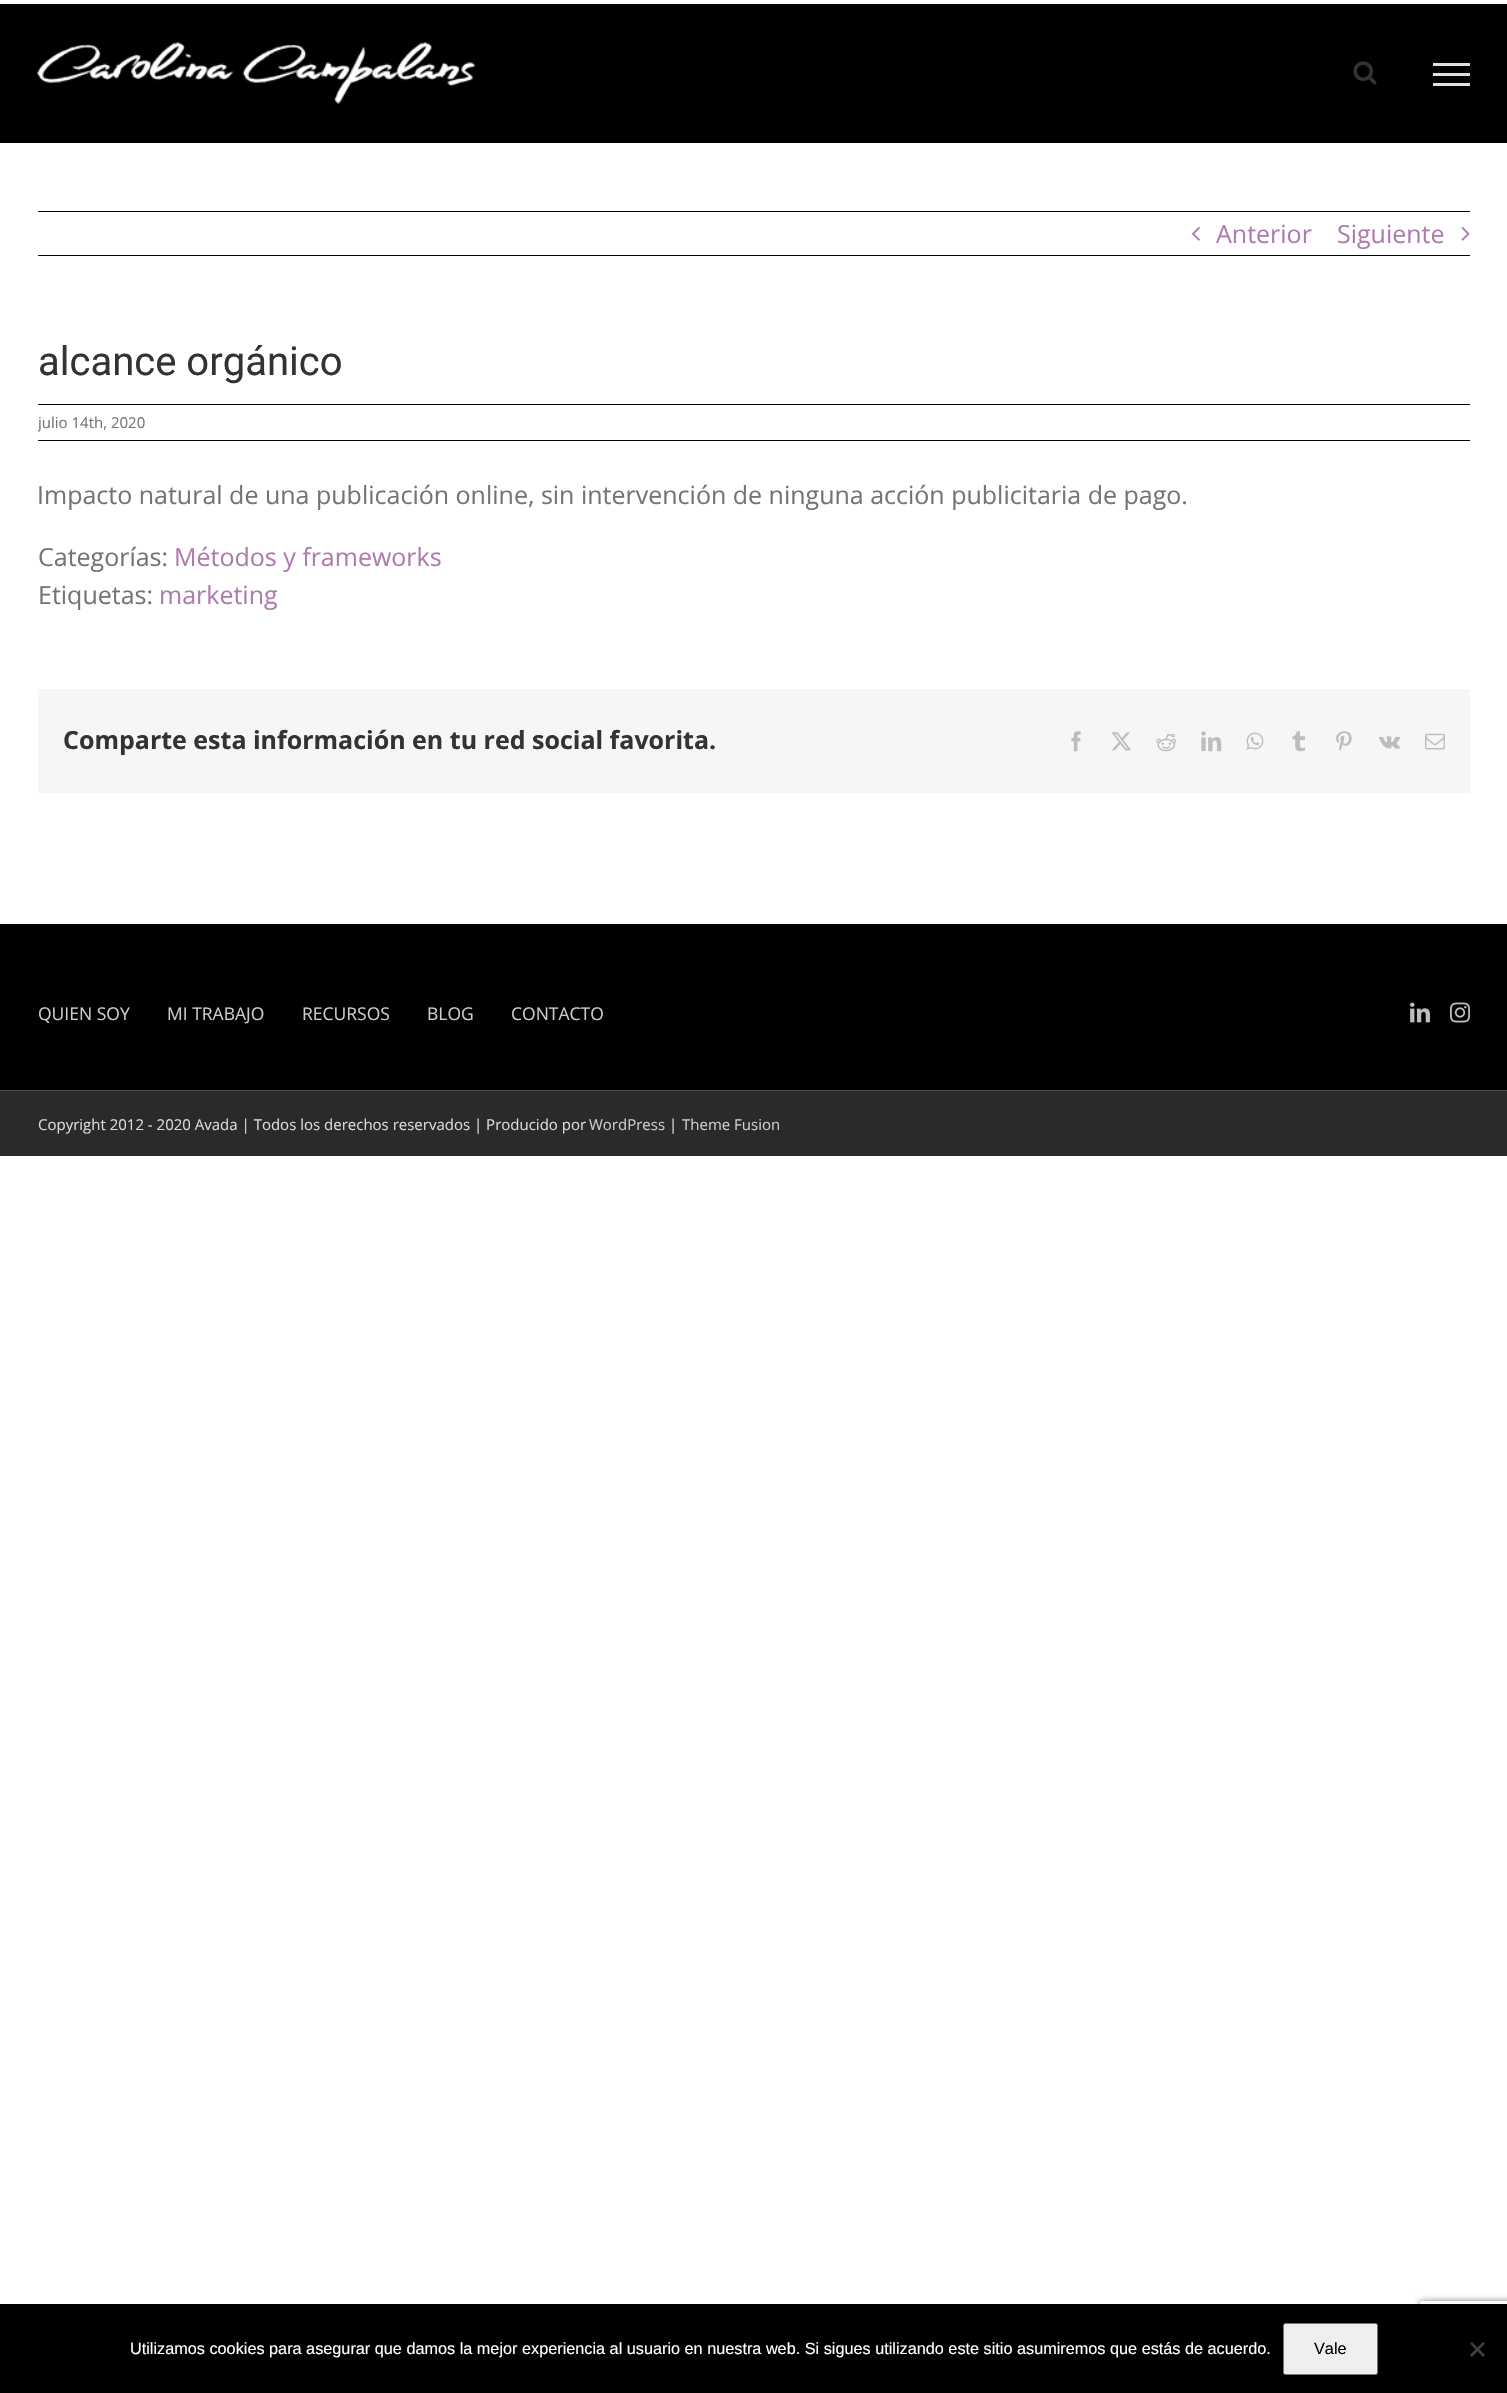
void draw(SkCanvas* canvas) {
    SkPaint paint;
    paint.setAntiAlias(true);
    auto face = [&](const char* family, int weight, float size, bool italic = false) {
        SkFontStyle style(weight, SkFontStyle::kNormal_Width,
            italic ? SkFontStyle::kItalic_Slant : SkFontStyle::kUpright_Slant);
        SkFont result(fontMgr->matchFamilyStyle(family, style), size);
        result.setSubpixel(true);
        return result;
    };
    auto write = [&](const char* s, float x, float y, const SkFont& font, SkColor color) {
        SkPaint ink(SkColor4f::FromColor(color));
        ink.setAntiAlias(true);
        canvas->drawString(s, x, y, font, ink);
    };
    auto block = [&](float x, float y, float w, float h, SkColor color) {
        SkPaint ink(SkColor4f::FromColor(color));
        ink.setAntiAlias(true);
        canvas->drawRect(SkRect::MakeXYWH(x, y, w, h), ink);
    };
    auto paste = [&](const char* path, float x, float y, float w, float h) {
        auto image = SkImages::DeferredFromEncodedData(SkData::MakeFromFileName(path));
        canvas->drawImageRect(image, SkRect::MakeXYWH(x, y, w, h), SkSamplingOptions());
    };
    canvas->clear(SK_ColorWHITE);
    block(0, 4, 1507, 139, SK_ColorBLACK);
    paste("pic1.png", 37, 42, 438, 62);
    paste("pic2.png", 1353, 61, 24, 24);
    block(1433, 63, 37, 3, SkColorSetRGB(224, 224, 224));
    block(1433, 73, 37, 3, SkColorSetRGB(224, 224, 224));
    block(1433, 83, 37, 3, SkColorSetRGB(224, 224, 224));
    block(38, 211, 1432, 1, SK_ColorBLACK);
    block(38, 255, 1432, 1, SK_ColorBLACK);
    paste("pic3.png", 1191, 226, 9, 15);
    auto kFont1 = face("Open Sans", 400, 25);
    write("Anterior", 1216, 243, kFont1, SkColorSetRGB(175, 123, 175));
    write("Siguiente", 1337, 243, kFont1, SkColorSetRGB(175, 123, 175));
    paste("pic4.png", 1461, 226, 9, 15);
    auto kFont2 = face("Roboto", 400, 40);
    write("alcance orgánico", 38, 375, kFont2, SkColorSetRGB(51, 51, 51));
    block(38, 404, 1432, 1, SK_ColorBLACK);
    block(38, 440, 1432, 1, SK_ColorBLACK);
    canvas->save();
    canvas->clipRect(SkRect::MakeXYWH(38, 405, 1432, 35));
    auto kFont3 = face("Open Sans", 400, 15);
    write("julio 14th, 2020", 38, 428, kFont3, SkColorSetRGB(116, 116, 116));
    canvas->restore();
    write("Impacto natural de una publicación online, sin intervención de ninguna acción publicitaria de pago.", 37, 504, kFont1, SkColorSetRGB(116, 116, 116));
    write("Categorías:", 38, 566, kFont1, SkColorSetRGB(116, 116, 116));
    write("Métodos y frameworks", 174, 566, kFont1, SkColorSetRGB(175, 123, 175));
    write("Etiquetas:", 38, 604, kFont1, SkColorSetRGB(116, 116, 116));
    write("marketing", 159, 604, kFont1, SkColorSetRGB(175, 123, 175));
    block(38, 689, 1432, 104, SkColorSetRGB(246, 246, 246));
    auto kFont4 = face("Open Sans", 700, 25);
    write("Comparte esta información en tu red social favorita.", 63, 749, kFont4, SkColorSetRGB(51, 51, 51));
    paste("pic5.png", 1071, 731, 10, 21);
    paste("pic6.png", 1111, 732, 20, 19);
    paste("pic7.png", 1156, 733, 21, 19);
    paste("pic8.png", 1201, 731, 21, 21);
    paste("pic9.png", 1246, 732, 18, 18);
    paste("pic10.png", 1292, 731, 13, 21);
    paste("pic11.png", 1336, 731, 16, 20);
    paste("pic12.png", 1378, 736, 23, 13);
    paste("pic13.png", 1425, 733, 20, 17);
    block(0, 924, 1507, 166, SK_ColorBLACK);
    auto kFont5 = face("Open Sans", 400, 17.5f);
    write("QUIEN SOY", 38, 1020, kFont5, SkColorSetRGB(204, 204, 204));
    write("MI TRABAJO", 167, 1020, kFont5, SkColorSetRGB(204, 204, 204));
    write("RECURSOS", 302, 1020, kFont5, SkColorSetRGB(204, 204, 204));
    write("BLOG", 427, 1020, kFont5, SkColorSetRGB(204, 204, 204));
    write("CONTACTO", 511, 1020, kFont5, SkColorSetRGB(204, 204, 204));
    paste("pic14.png", 1410, 1002, 20, 21);
    paste("pic15.png", 1450, 1002, 20, 21);
    block(0, 1091, 1507, 65, SkColorSetRGB(40, 42, 43));
    block(0, 1090, 1507, 1, SkColorSetRGB(75, 76, 77));
    write("Copyright 2012 - 2020 Avada | Todos los derechos reservados | Producido por", 38, 1130, kFont3, SkColorSetRGB(220, 218, 219));
    write("WordPress", 589, 1130, kFont3, SkColorSetRGB(204, 204, 204));
    write("|", 669, 1130, kFont3, SkColorSetRGB(220, 218, 219));
    write("Theme Fusion", 682, 1130, kFont3, SkColorSetRGB(204, 204, 204));
    canvas->save();
    canvas->clipPath(SkPathBuilder(SkPathFillType::kEvenOdd).moveTo(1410, 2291).lineTo(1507, 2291).lineTo(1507, 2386).lineTo(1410, 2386).close().moveTo(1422.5f, 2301).lineTo(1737.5f, 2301).cubicTo(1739, 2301, 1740, 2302, 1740, 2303.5f).lineTo(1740, 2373.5f).cubicTo(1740, 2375, 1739, 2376, 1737.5f, 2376).lineTo(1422.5f, 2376).cubicTo(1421, 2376, 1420, 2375, 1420, 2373.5f).lineTo(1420, 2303.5f).cubicTo(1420, 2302, 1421, 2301, 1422.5f, 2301).close().detach(), true);
    paint.setColor(SkColorSetRGB(128, 128, 128));
    paint.setMaskFilter(SkMaskFilter::MakeBlur(kNormal_SkBlurStyle, 3));
    canvas->drawRoundRect(SkRect::MakeXYWH(1420, 2301, 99, 75), 2.5f, 2.5f, paint);
    paint.setMaskFilter(nullptr);
    canvas->restore();
    block(0, 2304, 1507, 89, SK_ColorBLACK);
    auto kFont6 = face("Liberation Sans", 400, 16.25f);
    write("Utilizamos cookies para asegurar que damos la mejor experiencia al usuario en nuestra web. Si sigues utilizando este sitio asumiremos que estás de acuerdo.", 130, 2354, kFont6, SK_ColorWHITE);
    paint.setColor(SkColorSetRGB(239, 239, 239));
    canvas->drawRoundRect(SkRect::MakeXYWH(1283.5f, 2323.5f, 94, 51), 2, 2, paint);
    paint.setStyle(SkPaint::kStroke_Style);
    paint.setStrokeWidth(1);
    paint.setColor(SkColorSetRGB(118, 118, 118));
    canvas->drawRoundRect(SkRect::MakeXYWH(1283.5f, 2323.5f, 94, 51), 2, 2, paint);
    write("Vale", 1314, 2354, kFont6, SK_ColorBLACK);
    paint.setStyle(SkPaint::kFill_Style);
    paint.setColor(SkColorSetRGB(64, 64, 64));
    canvas->drawPath(SkPathBuilder().moveTo(1483, 2342).lineTo(1485, 2343.5f).lineTo(1472, 2357).lineTo(1470, 2355).close().detach(), paint);
    canvas->drawPath(SkPathBuilder().moveTo(1470, 2343.5f).lineTo(1472, 2342).lineTo(1485, 2355).lineTo(1483, 2357).close().detach(), paint);
}
